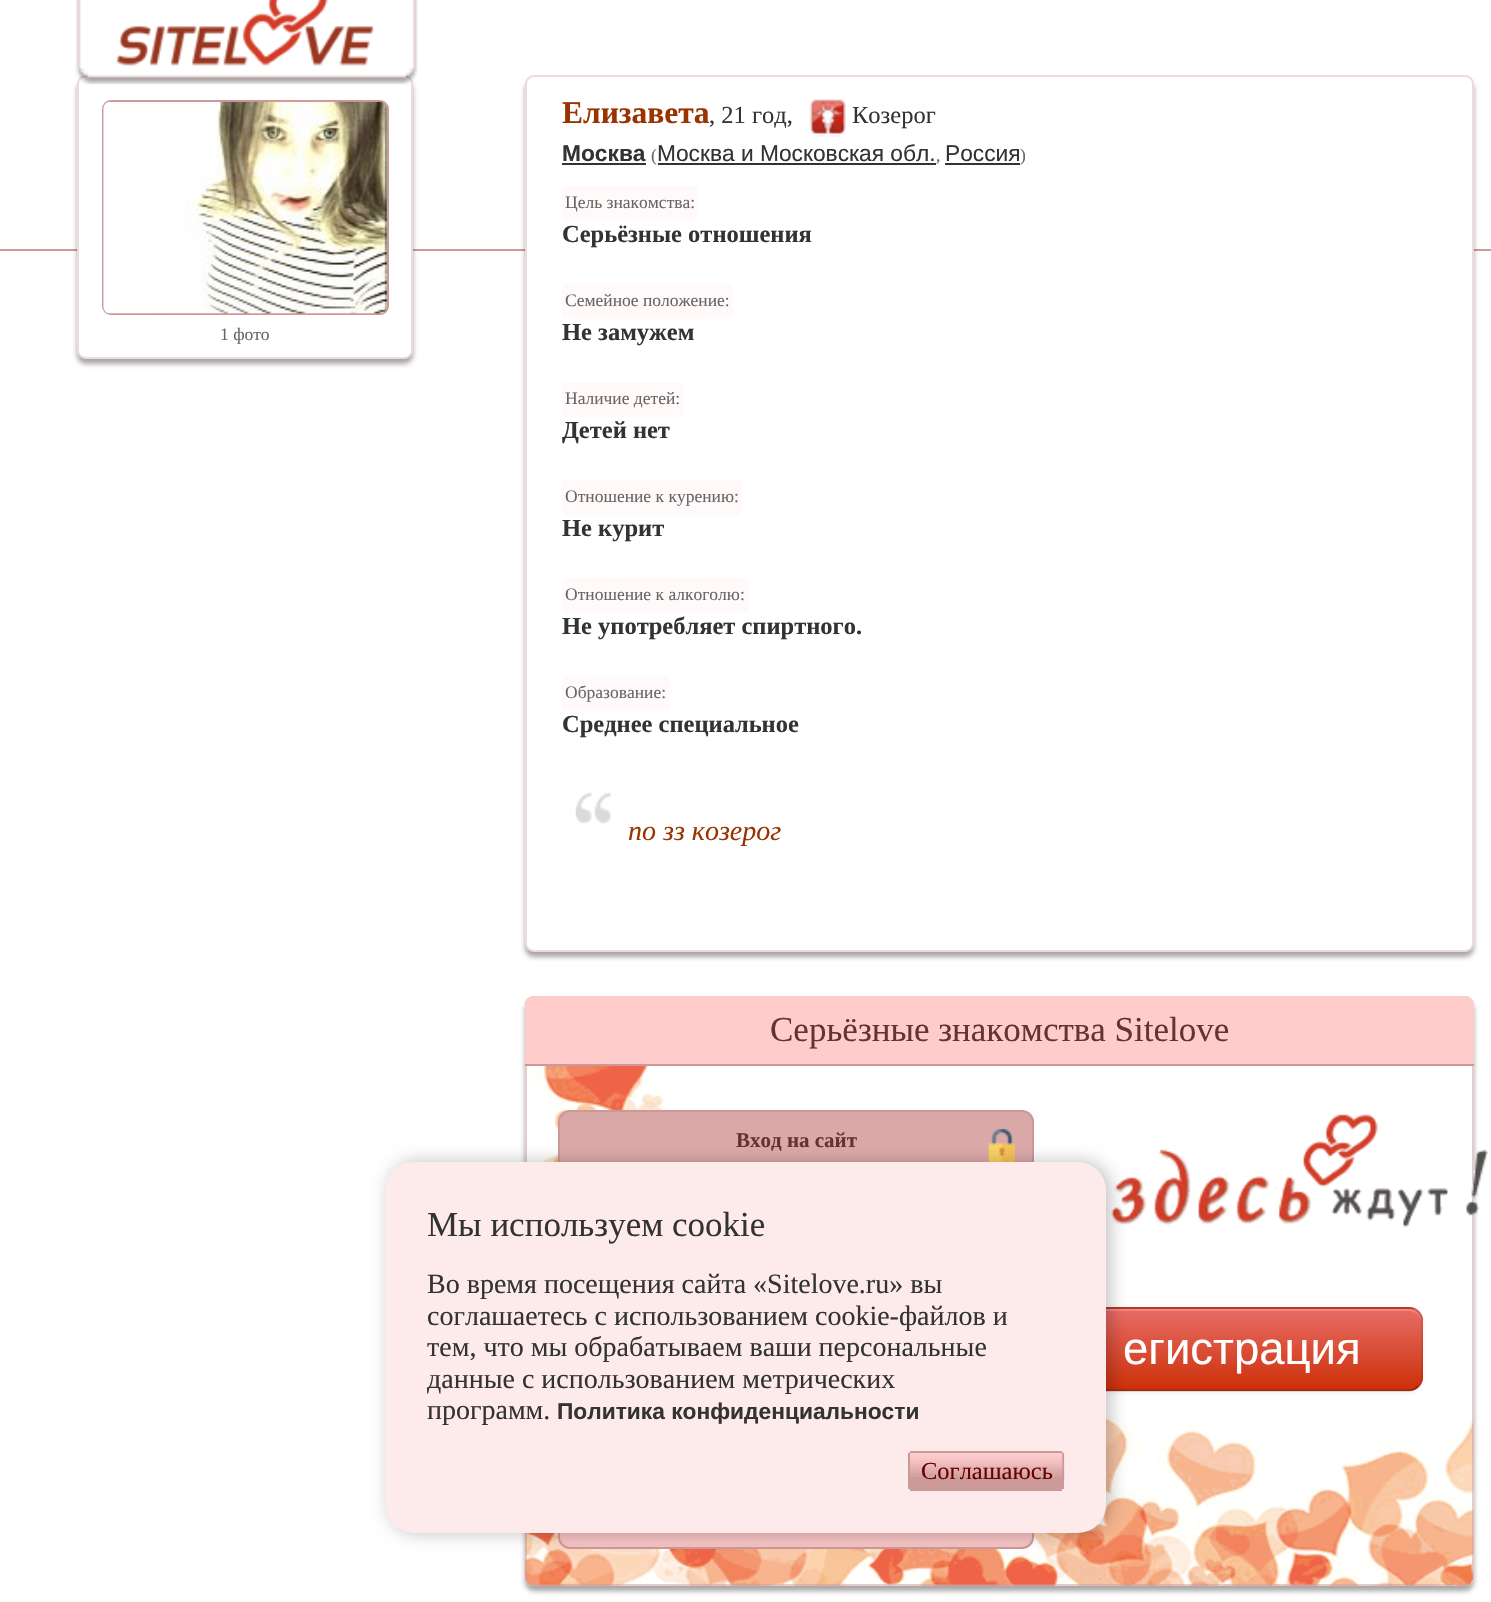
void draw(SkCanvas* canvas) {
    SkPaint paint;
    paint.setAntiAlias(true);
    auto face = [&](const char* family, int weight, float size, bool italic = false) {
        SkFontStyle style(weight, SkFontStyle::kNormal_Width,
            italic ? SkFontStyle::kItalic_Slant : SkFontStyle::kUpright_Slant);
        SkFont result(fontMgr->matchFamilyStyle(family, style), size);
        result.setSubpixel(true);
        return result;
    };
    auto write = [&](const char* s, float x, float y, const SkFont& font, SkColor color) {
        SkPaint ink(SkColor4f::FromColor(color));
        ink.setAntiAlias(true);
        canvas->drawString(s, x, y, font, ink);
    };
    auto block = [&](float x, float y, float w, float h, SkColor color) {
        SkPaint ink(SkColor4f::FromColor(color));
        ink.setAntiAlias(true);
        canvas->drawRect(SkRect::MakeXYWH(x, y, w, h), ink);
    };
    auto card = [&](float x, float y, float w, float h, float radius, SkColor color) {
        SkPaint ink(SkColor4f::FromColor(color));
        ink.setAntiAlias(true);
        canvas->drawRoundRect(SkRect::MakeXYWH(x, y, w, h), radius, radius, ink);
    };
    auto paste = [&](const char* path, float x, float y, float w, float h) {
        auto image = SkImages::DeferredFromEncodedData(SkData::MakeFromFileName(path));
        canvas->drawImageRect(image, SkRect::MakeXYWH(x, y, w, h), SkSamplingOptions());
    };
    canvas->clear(SK_ColorWHITE);
    block(0, 249, 1491, 2, SkColorSetRGB(204, 153, 153));
    paint.setColor(SkColorSetARGB(89, 0, 0, 0));
    paint.setMaskFilter(SkMaskFilter::MakeBlur(kNormal_SkBlurStyle, 2.5f));
    canvas->drawRoundRect(SkRect::MakeXYWH(77, 81, 336, 283), 9, 9, paint);
    paint.setMaskFilter(nullptr);
    card(77, 75, 336, 284, 9, SK_ColorWHITE);
    paint.setStyle(SkPaint::kStroke_Style);
    paint.setStrokeWidth(2);
    paint.setColor(SkColorSetARGB(89, 204, 153, 153));
    canvas->drawRoundRect(SkRect::MakeXYWH(78, 76, 334, 282), 8, 8, paint);
    paste("pic1.png", 75, 0, 343, 85);
    paste("pic3.png", 381, 102, 6, 211);
    paint.setColor(SkColorSetRGB(204, 153, 153));
    canvas->drawRoundRect(SkRect::MakeXYWH(103, 101, 285, 213), 8, 8, paint);
    paste("pic2.png", 103, 101, 284, 213);
    auto kFont1 = face("Liberation Serif", 400, 17.5f);
    write("1 фото", 220, 340, kFont1, SkColorSetRGB(102, 102, 102));
    paint.setStyle(SkPaint::kFill_Style);
    paint.setColor(SkColorSetARGB(89, 0, 0, 0));
    paint.setMaskFilter(SkMaskFilter::MakeBlur(kNormal_SkBlurStyle, 2.5f));
    canvas->drawRoundRect(SkRect::MakeXYWH(525, 81, 949, 876), 9, 9, paint);
    paint.setMaskFilter(nullptr);
    card(525, 75, 949, 877, 9, SK_ColorWHITE);
    paint.setStyle(SkPaint::kStroke_Style);
    paint.setColor(SkColorSetARGB(89, 204, 153, 153));
    canvas->drawRoundRect(SkRect::MakeXYWH(526, 76, 947, 875), 8, 8, paint);
    auto kFont2 = face("Liberation Serif", 700, 31.5f);
    write("Елизавета", 562, 123, kFont2, SkColorSetRGB(153, 51, 0));
    auto kFont3 = face("Liberation Serif", 400, 24.5f);
    write(", 21 год,", 709, 123, kFont3, SkColorSetRGB(51, 51, 51));
    paste("pic4.png", 809, 99, 37, 38);
    write("Козерог", 852, 123, kFont3, SkColorSetRGB(51, 51, 51));
    auto kFont4 = face("Liberation Sans", 700, 22.75f);
    write("Москва", 562, 161, kFont4, SkColorSetRGB(51, 51, 51));
    block(562, 163, 84, 2, SkColorSetRGB(51, 51, 51));
    write("(", 651, 161, kFont1, SkColorSetRGB(102, 102, 102));
    auto kFont5 = face("Liberation Sans", 400, 22.75f);
    write("Москва и Московская обл.", 657, 161, kFont5, SkColorSetRGB(51, 51, 51));
    write(",", 936, 161, kFont1, SkColorSetRGB(102, 102, 102));
    block(658, 163, 278, 2, SkColorSetRGB(51, 51, 51));
    block(945, 163, 75, 2, SkColorSetRGB(51, 51, 51));
    write("Россия", 945, 161, kFont5, SkColorSetRGB(51, 51, 51));
    write(")", 1020, 161, kFont1, SkColorSetRGB(102, 102, 102));
    card(562, 186, 136, 35, 5, SkColorSetRGB(255, 249, 249));
    write("Цель знакомства:", 565, 208, kFont1, SkColorSetRGB(102, 102, 102));
    auto kFont6 = face("Liberation Serif", 700, 24.5f);
    write("Серьёзные отношения", 562, 242, kFont6, SkColorSetRGB(51, 51, 51));
    card(562, 284, 171, 35, 5, SkColorSetRGB(255, 249, 249));
    write("Семейное положение:", 565, 306, kFont1, SkColorSetRGB(102, 102, 102));
    write("Не замужем", 562, 340, kFont6, SkColorSetRGB(51, 51, 51));
    card(562, 382, 122, 35, 5, SkColorSetRGB(255, 249, 249));
    write("Наличие детей:", 565, 404, kFont1, SkColorSetRGB(102, 102, 102));
    write("Детей нет", 562, 438, kFont6, SkColorSetRGB(51, 51, 51));
    card(562, 480, 180, 35, 5, SkColorSetRGB(255, 249, 249));
    write("Отношение к курению:", 565, 502, kFont1, SkColorSetRGB(102, 102, 102));
    write("Не курит", 562, 536, kFont6, SkColorSetRGB(51, 51, 51));
    card(562, 578, 187, 35, 5, SkColorSetRGB(255, 249, 249));
    write("Отношение к алкоголю:", 565, 600, kFont1, SkColorSetRGB(102, 102, 102));
    write("Не употребляет спиртного.", 562, 634, kFont6, SkColorSetRGB(51, 51, 51));
    card(562, 676, 108, 35, 5, SkColorSetRGB(255, 249, 249));
    write("Образование:", 565, 698, kFont1, SkColorSetRGB(102, 102, 102));
    write("Среднее специальное", 562, 732, kFont6, SkColorSetRGB(51, 51, 51));
    paste("pic5.png", 575, 792, 36, 32);
    auto kFont7 = face("Liberation Serif", 400, 28, true);
    write("по зз козерог", 628, 840, kFont7, SkColorSetRGB(153, 51, 0));
    paste("pic8.png", 525, 996, 949, 590);
    canvas->save();
    canvas->clipPath(SkPathBuilder(SkPathFillType::kEvenOdd).moveTo(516, 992).lineTo(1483, 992).lineTo(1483, 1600).lineTo(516, 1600).close().moveTo(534, 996).lineTo(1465, 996).cubicTo(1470, 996, 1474, 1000, 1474, 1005).lineTo(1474, 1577).cubicTo(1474, 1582, 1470, 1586, 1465, 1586).lineTo(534, 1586).cubicTo(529, 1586, 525, 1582, 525, 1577).lineTo(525, 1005).cubicTo(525, 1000, 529, 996, 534, 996).close().detach(), true);
    paint.setStyle(SkPaint::kFill_Style);
    paint.setColor(SkColorSetARGB(89, 0, 0, 0));
    paint.setMaskFilter(SkMaskFilter::MakeBlur(kNormal_SkBlurStyle, 2.5f));
    canvas->drawRoundRect(SkRect::MakeXYWH(525, 1001, 949, 590), 9, 9, paint);
    paint.setMaskFilter(nullptr);
    canvas->restore();
    paint.setStyle(SkPaint::kStroke_Style);
    paint.setColor(SkColorSetARGB(128, 204, 153, 153));
    canvas->drawRoundRect(SkRect::MakeXYWH(526, 997, 947, 588), 8, 8, paint);
    paint.setStyle(SkPaint::kFill_Style);
    paint.setColor(SkColorSetARGB(13, 0, 0, 0));
    paint.setMaskFilter(SkMaskFilter::MakeBlur(kNormal_SkBlurStyle, 2));
    canvas->drawRoundRect(SkRect::MakeXYWH(1031, 1309, 392, 84), 14, 14, paint);
    paint.setMaskFilter(nullptr);
    card(1031, 1307, 392, 84, 14, SkColorSetRGB(209, 61, 39));
    canvas->save();
    canvas->clipPath(SkPathBuilder().moveTo(1045, 1307).lineTo(1409, 1307).cubicTo(1416.5f, 1307, 1423, 1313.5f, 1423, 1321).lineTo(1423, 1377).cubicTo(1423, 1384.5f, 1416.5f, 1391, 1409, 1391).lineTo(1045, 1391).cubicTo(1037.5f, 1391, 1031, 1384.5f, 1031, 1377).lineTo(1031, 1321).cubicTo(1031, 1313.5f, 1037.5f, 1307, 1045, 1307).close().detach(), true);
    {
        const SkColor colors[] = {SkColorSetRGB(232, 108, 102), SkColorSetRGB(204, 48, 8)};
        const float stops[] = {0, 1};
        const SkPoint ends[] = {{1227, 1309}, {1227, 1390}};
        paint.setShader(SkGradientShader::MakeLinear(ends, colors, stops, 2, SkTileMode::kClamp));
        paint.setAlpha(255);
    }
    canvas->drawRect(SkRect::MakeXYWH(1106, 1309, 317, 81), paint);
    canvas->restore();
    paint.setShader(nullptr);
    paint.setColor(SkColorSetARGB(51, 255, 255, 255));
    canvas->drawPath(SkPathBuilder().moveTo(1045, 1311).lineTo(1409, 1311).cubicTo(1416, 1311, 1421, 1316, 1421, 1323).lineTo(1421, 1321).cubicTo(1421, 1314, 1416, 1309, 1409, 1309).lineTo(1045, 1309).cubicTo(1040, 1309, 1035, 1312, 1034, 1317).cubicTo(1036, 1313, 1040, 1311, 1045, 1311).close().detach(), paint);
    paint.setStyle(SkPaint::kStroke_Style);
    paint.setStrokeWidth(1.8f);
    paint.setColor(SkColorSetARGB(64, 0, 0, 0));
    canvas->drawPath(SkPathBuilder().moveTo(1418, 1386.5f).cubicTo(1415.5f, 1389, 1412, 1390.5f, 1409, 1390.5f).lineTo(1045, 1390.5f).cubicTo(1041.5f, 1390.5f, 1038, 1389, 1035.5f, 1386.5f).detach(), paint);
    paint.setColor(SkColorSetARGB(26, 0, 0, 0));
    canvas->drawPath(SkPathBuilder().moveTo(1035.5f, 1386.5f).cubicTo(1033, 1384, 1031.5f, 1380.5f, 1031.5f, 1377).lineTo(1031.5f, 1321).cubicTo(1031.5f, 1318, 1033, 1314.5f, 1035.5f, 1312).cubicTo(1038, 1309.5f, 1041.5f, 1308, 1045, 1308).lineTo(1409, 1308).cubicTo(1412, 1308, 1415.5f, 1309.5f, 1418, 1312).cubicTo(1420.5f, 1314.5f, 1422, 1318, 1422, 1321).lineTo(1422, 1377).cubicTo(1422, 1380.5f, 1420.5f, 1384, 1418, 1386.5f).detach(), paint);
    canvas->save();
    canvas->clipPath(SkPathBuilder().moveTo(570, 1110).lineTo(1022, 1110).cubicTo(1028.5f, 1110, 1034, 1115.5f, 1034, 1122).lineTo(1034, 1537).cubicTo(1034, 1543.5f, 1028.5f, 1549, 1022, 1549).lineTo(570, 1549).cubicTo(563.5f, 1549, 558, 1543.5f, 558, 1537).lineTo(558, 1122).cubicTo(558, 1115.5f, 563.5f, 1110, 570, 1110).close().detach(), true);
    paint.setStyle(SkPaint::kFill_Style);
    {
        const SkColor colors[] = {SkColorSetRGB(218, 167, 167), SkColorSetRGB(245, 194, 195)};
        const float stops[] = {0, 1};
        const SkPoint ends[] = {{796, 1111}, {796, 1547}};
        paint.setShader(SkGradientShader::MakeLinear(ends, colors, stops, 2, SkTileMode::kClamp));
        paint.setAlpha(255);
    }
    canvas->drawRect(SkRect::MakeXYWH(558, 1111, 476, 436), paint);
    canvas->restore();
    paint.setStyle(SkPaint::kStroke_Style);
    paint.setStrokeWidth(2);
    paint.setShader(nullptr);
    paint.setColor(SkColorSetRGB(204, 153, 153));
    canvas->drawRoundRect(SkRect::MakeXYWH(559, 1111, 474, 437), 11, 11, paint);
    paste("pic9.png", 988, 1129, 27, 33);
    paste("pic10.png", 1110, 1114, 378, 114);
    paint.setStyle(SkPaint::kFill_Style);
    paint.setColor(SkColorSetARGB(64, 0, 0, 0));
    paint.setMaskFilter(SkMaskFilter::MakeBlur(kNormal_SkBlurStyle, 9));
    canvas->drawRoundRect(SkRect::MakeXYWH(389, 1162, 721, 371), 28, 28, paint);
    paint.setMaskFilter(nullptr);
    card(385, 1162, 721, 371, 28, SkColorSetRGB(253, 234, 234));
    auto kFont8 = face("Liberation Serif", 400, 35);
    write("Мы используем сookie", 427, 1236, kFont8, SkColorSetRGB(51, 51, 51));
    auto kFont9 = face("Liberation Serif", 400, 28);
    write("Во время посещения сайта «Sitelove.ru» вы", 427, 1293, kFont9, SkColorSetRGB(51, 51, 51));
    write("соглашаетесь с использованием cookie-файлов и", 427, 1325, kFont9, SkColorSetRGB(51, 51, 51));
    write("тем, что мы обрабатываем ваши персональные", 427, 1356, kFont9, SkColorSetRGB(51, 51, 51));
    write("данные с использованием метрических", 427, 1388, kFont9, SkColorSetRGB(51, 51, 51));
    write("программ.", 427, 1419, kFont9, SkColorSetRGB(51, 51, 51));
    write("Политика конфиденциальности", 557, 1419, kFont4, SkColorSetRGB(51, 51, 51));
    paste("pic7.png", 908, 1452, 157, 29);
    block(1062, 1453, 2, 36, SkColorSetRGB(204, 153, 153));
    paste("pic6.png", 910, 1451, 153, 26);
    block(910, 1477, 152, 12, SkColorSetRGB(205, 154, 154));
    write("Соглашаюсь", 921, 1479, kFont3, SkColorSetRGB(102, 0, 0));
    block(908, 1453, 2, 36, SkColorSetRGB(204, 153, 153));
    block(910, 1451, 152, 2, SkColorSetRGB(204, 153, 153));
    block(910, 1489, 152, 2, SkColorSetRGB(204, 153, 153));
    paint.setColor(SkColorSetRGB(255, 204, 204));
    canvas->drawPath(SkPathBuilder().moveTo(534, 996).lineTo(1465, 996).cubicTo(1470, 996, 1474, 1000, 1474, 1005).lineTo(1474, 1066).lineTo(525, 1066).lineTo(525, 1005).cubicTo(525, 1000, 529, 996, 534, 996).close().detach(), paint);
    block(525, 1064, 949, 2, SkColorSetRGB(204, 153, 153));
    write("Серьёзные знакомства Sitelove", 770, 1041, kFont8, SkColorSetRGB(102, 51, 51));
    auto kFont10 = face("Liberation Serif", 700, 21);
    write("Вход на сайт", 736, 1147, kFont10, SkColorSetRGB(102, 51, 51));
    auto kFont11 = face("Liberation Sans", 400, 45.5f);
    write("егистрация", 1123, 1364, kFont11, SK_ColorWHITE);
}
